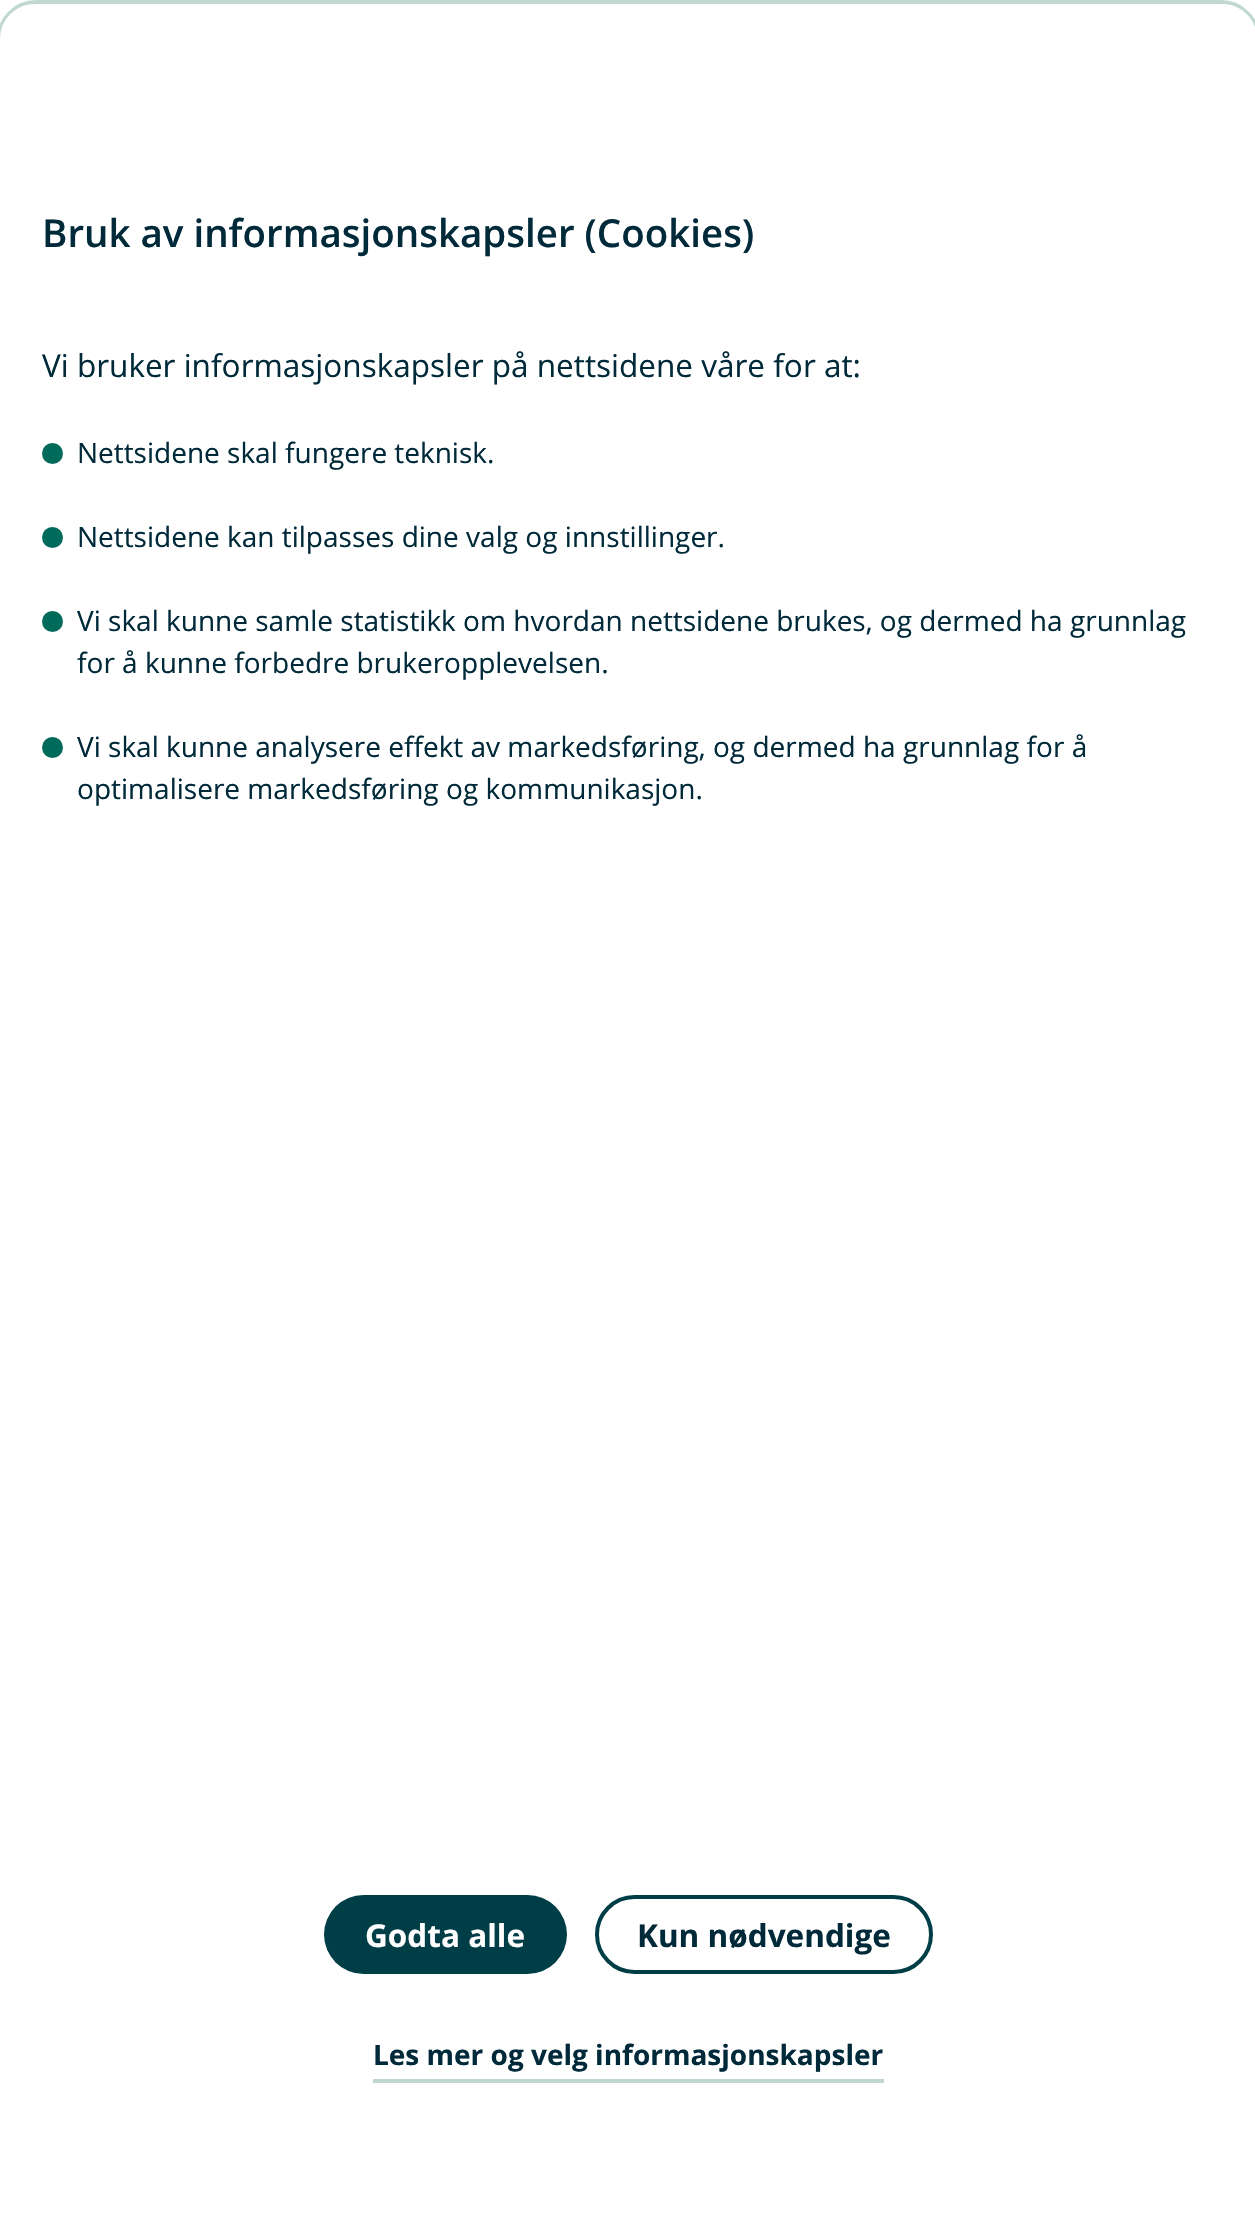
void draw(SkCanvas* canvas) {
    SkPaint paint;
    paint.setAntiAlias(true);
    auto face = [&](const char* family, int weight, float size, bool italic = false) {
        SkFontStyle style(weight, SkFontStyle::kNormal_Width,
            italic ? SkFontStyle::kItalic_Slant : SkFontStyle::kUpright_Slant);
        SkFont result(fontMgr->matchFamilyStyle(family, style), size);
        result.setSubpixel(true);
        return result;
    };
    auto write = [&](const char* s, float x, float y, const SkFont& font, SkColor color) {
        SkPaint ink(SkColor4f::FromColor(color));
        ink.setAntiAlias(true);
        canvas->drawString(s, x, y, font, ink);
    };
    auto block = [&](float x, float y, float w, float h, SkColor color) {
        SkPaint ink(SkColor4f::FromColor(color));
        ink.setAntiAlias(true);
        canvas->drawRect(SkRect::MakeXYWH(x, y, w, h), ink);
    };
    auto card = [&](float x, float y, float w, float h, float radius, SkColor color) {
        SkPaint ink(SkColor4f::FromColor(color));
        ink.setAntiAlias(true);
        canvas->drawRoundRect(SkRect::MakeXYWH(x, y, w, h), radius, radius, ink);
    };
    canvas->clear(SK_ColorWHITE);
    paint.setStyle(SkPaint::kStroke_Style);
    paint.setStrokeWidth(4);
    paint.setColor(SkColorSetRGB(193, 216, 210));
    canvas->drawPath(SkPathBuilder().moveTo(36, 2).lineTo(1221, 2).cubicTo(1241.5f, 2, 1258, 18.5f, 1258, 39).lineTo(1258, 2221).lineTo(-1, 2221).lineTo(-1, 39).cubicTo(-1, 18.5f, 15.5f, 2, 36, 2).close().detach(), paint);
    paint.setStyle(SkPaint::kFill_Style);
    paint.setColor(SK_ColorWHITE);
    canvas->drawPath(SkPathBuilder().moveTo(35, 4).lineTo(1222, 4).cubicTo(1241.5f, 4, 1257, 19.5f, 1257, 39).lineTo(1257, 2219).lineTo(0, 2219).lineTo(0, 39).cubicTo(0, 19.5f, 15.5f, 4, 35, 4).close().detach(), paint);
    auto kFont1 = face("Open Sans", 600, 38.5f);
    write("Bruk av informasjonskapsler (Cookies)", 42, 247, kFont1, SkColorSetRGB(0, 42, 58));
    auto kFont2 = face("Open Sans", 400, 31.5f);
    write("Vi bruker informasjonskapsler på nettsidene våre for at:", 42, 377, kFont2, SkColorSetRGB(0, 42, 58));
    paint.setColor(SkColorSetRGB(0, 106, 91));
    canvas->drawCircle(52.5f, 453.5f, 10.5f, paint);
    auto kFont3 = face("Open Sans", 400, 28);
    write("Nettsidene skal fungere teknisk.", 77, 463, kFont3, SkColorSetRGB(0, 42, 58));
    canvas->drawCircle(52.5f, 537.5f, 10.5f, paint);
    write("Nettsidene kan tilpasses dine valg og innstillinger.", 77, 547, kFont3, SkColorSetRGB(0, 42, 58));
    canvas->drawCircle(52.5f, 621.5f, 10.5f, paint);
    write("Vi skal kunne samle statistikk om hvordan nettsidene brukes, og dermed ha grunnlag", 77, 631, kFont3, SkColorSetRGB(0, 42, 58));
    write("for å kunne forbedre brukeropplevelsen.", 77, 673, kFont3, SkColorSetRGB(0, 42, 58));
    canvas->drawCircle(52.5f, 747.5f, 10.5f, paint);
    write("Vi skal kunne analysere effekt av markedsføring, og dermed ha grunnlag for å", 77, 757, kFont3, SkColorSetRGB(0, 42, 58));
    write("optimalisere markedsføring og kommunikasjon.", 77, 799, kFont3, SkColorSetRGB(0, 42, 58));
    card(324, 1895, 243, 79, 39.5f, SkColorSetRGB(0, 62, 71));
    auto kFont4 = face("Open Sans", 700, 31.5f);
    write("Godta alle", 365, 1947, kFont4, SK_ColorWHITE);
    paint.setStyle(SkPaint::kStroke_Style);
    paint.setColor(SkColorSetRGB(0, 62, 71));
    canvas->drawRoundRect(SkRect::MakeXYWH(597, 1897, 334, 75), 37.5f, 37.5f, paint);
    write("Kun nødvendige", 637, 1947, kFont4, SkColorSetRGB(0, 42, 58));
    auto kFont5 = face("Open Sans", 700, 28);
    write("Les mer og velg informasjonskapsler", 373, 2065, kFont5, SkColorSetRGB(0, 42, 58));
    block(373, 2079, 511, 4, SkColorSetRGB(193, 216, 210));
}
